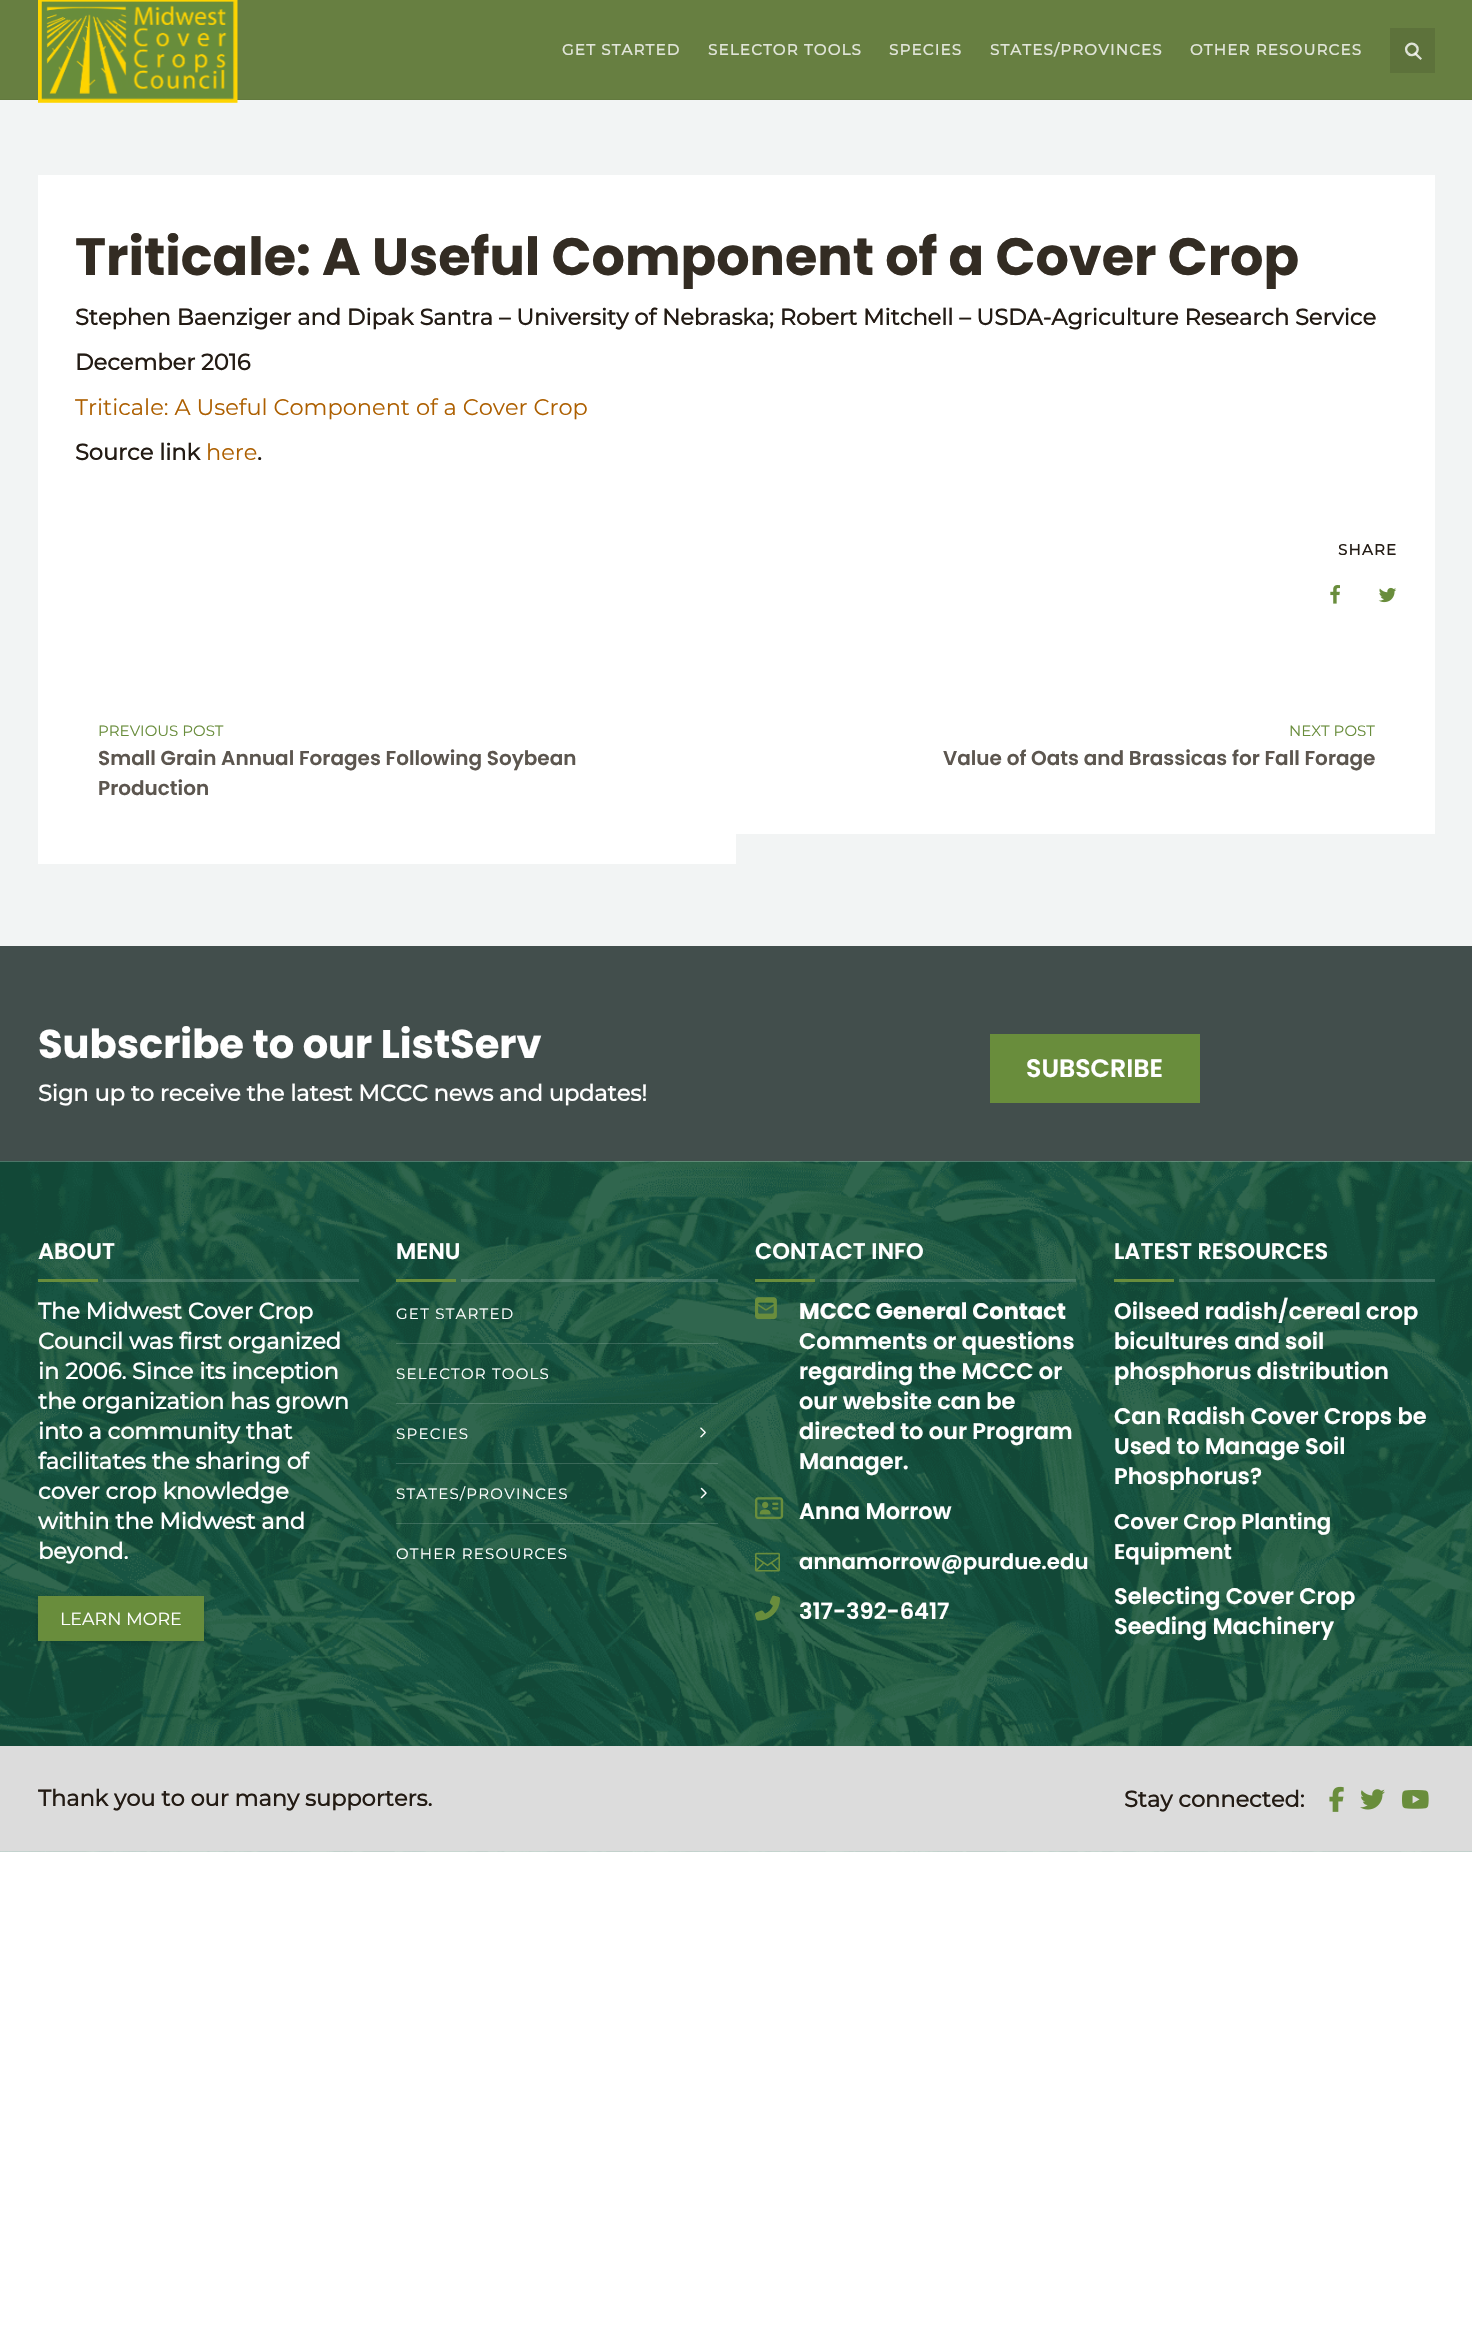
void draw(SkCanvas* canvas) {
    SkPaint paint;
    paint.setAntiAlias(true);
    auto face = [&](const char* family, int weight, float size, bool italic = false) {
        SkFontStyle style(weight, SkFontStyle::kNormal_Width,
            italic ? SkFontStyle::kItalic_Slant : SkFontStyle::kUpright_Slant);
        SkFont result(fontMgr->matchFamilyStyle(family, style), size);
        result.setSubpixel(true);
        return result;
    };
    auto write = [&](const char* s, float x, float y, const SkFont& font, SkColor color) {
        SkPaint ink(SkColor4f::FromColor(color));
        ink.setAntiAlias(true);
        canvas->drawString(s, x, y, font, ink);
    };
    auto writeSpaced = [&](const char* s, float x, float y, const SkFont& font, const SkPaint& ink, float letter, float word) {
        std::vector<SkGlyphID> glyphs(font.countText(s, strlen(s), SkTextEncoding::kUTF8));
        std::vector<float> xs(glyphs.size());
        font.textToGlyphs(s, strlen(s), SkTextEncoding::kUTF8, glyphs);
        font.getXPos(glyphs, xs, x);
        float extra = 0;
        for (size_t i = 0; i < glyphs.size(); i++) {
            xs[i] += extra;
            extra += letter + word * (glyphs[i] == font.unicharToGlyph(' '));
        }
        canvas->drawTextBlob(SkTextBlob::MakeFromPosHGlyphs(glyphs, xs, y, font), 0, 0, ink);
    };
    auto block = [&](float x, float y, float w, float h, SkColor color) {
        SkPaint ink(SkColor4f::FromColor(color));
        ink.setAntiAlias(true);
        canvas->drawRect(SkRect::MakeXYWH(x, y, w, h), ink);
    };
    auto paste = [&](const char* path, float x, float y, float w, float h) {
        auto image = SkImages::DeferredFromEncodedData(SkData::MakeFromFileName(path));
        canvas->drawImageRect(image, SkRect::MakeXYWH(x, y, w, h), SkSamplingOptions());
    };
    canvas->clear(SK_ColorWHITE);
    block(0, 0, 1472, 99, SkColorSetRGB(103, 127, 65));
    block(0, 99, 1472, 1, SkColorSetRGB(98, 121, 62));
    block(0, 100, 1472, 846, SkColorSetRGB(242, 244, 244));
    paste("pic1.png", 38, 0, 200, 103);
    auto kFont1 = face("Montserrat", 700, 15);
    paint.setColor(SkColorSetRGB(225, 229, 217));
    writeSpaced("GET STARTED", 562, 55, kFont1, paint, 1.25f, 0);
    writeSpaced("SELECTOR TOOLS", 708, 55, kFont1, paint, 1.25f, 0);
    writeSpaced("SPECIES", 889, 55, kFont1, paint, 1.25f, 0);
    writeSpaced("STATES/PROVINCES", 990, 55, kFont1, paint, 1.25f, 0);
    writeSpaced("OTHER RESOURCES", 1190, 55, kFont1, paint, 1.25f, 0);
    block(1390, 28, 45, 45, SkColorSetRGB(93, 114, 59));
    paint.setStyle(SkPaint::kStroke_Style);
    paint.setStrokeWidth(2.5f);
    paint.setColor(SkColorSetRGB(223, 227, 216));
    canvas->drawPath(SkPathBuilder().moveTo(1408, 53.5f).cubicTo(1402.5f, 48, 1410.5f, 40, 1416, 45.5f).detach(), paint);
    paint.setColor(SkColorSetARGB(204, 255, 255, 255));
    canvas->drawPath(SkPathBuilder().moveTo(1416, 45.5f).cubicTo(1421, 50.5f, 1413, 58.5f, 1408, 53.5f).detach(), paint);
    paint.setStyle(SkPaint::kFill_Style);
    canvas->drawPath(SkPathBuilder().moveTo(1416, 52.5f).lineTo(1422, 58.5f).lineTo(1420.5f, 60).lineTo(1414, 54).close().detach(), paint);
    block(38, 175, 1397, 479, SK_ColorWHITE);
    auto kFont2 = face("Poppins", 700, 52.5f);
    write("Triticale: A Useful Component of a Cover Crop", 75, 275, kFont2, SkColorSetRGB(51, 44, 35));
    auto kFont3 = face("Montserrat", 700, 22.5f);
    write("Stephen Baenziger and Dipak Santra – University of Nebraska; Robert Mitchell – USDA-Agriculture Research Service", 75, 325, kFont3, SkColorSetRGB(35, 27, 20));
    write("December 2016", 75, 370, kFont3, SkColorSetRGB(35, 27, 20));
    auto kFont4 = face("Montserrat", 100, 22.5f);
    write("Triticale: A Useful Component of a Cover Crop", 75, 415, kFont4, SkColorSetRGB(173, 95, 0));
    write("Source link", 75, 460, kFont3, SkColorSetRGB(35, 27, 20));
    write("here", 206, 460, kFont4, SkColorSetRGB(173, 95, 0));
    write(".", 257, 460, kFont3, SkColorSetRGB(35, 27, 20));
    paint.setColor(SkColorSetRGB(35, 27, 20));
    writeSpaced("SHARE", 1338, 555, kFont1, paint, 1.25f, 0);
    paste("pic2.png", 1330, 585, 10, 19);
    paste("pic3.png", 1378, 587, 19, 16);
    block(38, 654, 698, 210, SK_ColorWHITE);
    auto kFont5 = face("Montserrat", 100, 15);
    write("PREVIOUS POST", 98, 736, kFont5, SkColorSetRGB(105, 141, 60));
    auto kFont6 = face("Poppins", 600, 20);
    write("Small Grain Annual Forages Following Soybean", 98, 765, kFont6, SkColorSetRGB(92, 86, 79));
    write("Production", 98, 795, kFont6, SkColorSetRGB(92, 86, 79));
    block(736, 654, 699, 180, SK_ColorWHITE);
    write("NEXT POST", 1289, 736, kFont5, SkColorSetRGB(105, 141, 60));
    write("Value of Oats and Brassicas for Fall Forage", 943, 765, kFont6, SkColorSetRGB(92, 86, 79));
    block(0, 946, 1472, 215, SkColorSetRGB(66, 78, 76));
    auto kFont7 = face("Poppins", 700, 40);
    write("Subscribe to our ListServ", 38, 1058, kFont7, SK_ColorWHITE);
    write("Sign up to receive the latest MCCC news and updates!", 38, 1101, kFont3, SK_ColorWHITE);
    block(990, 1034, 210, 69, SkColorSetRGB(105, 141, 60));
    auto kFont8 = face("Poppins", 600, 25.25f);
    write("SUBSCRIBE", 1026, 1077, kFont8, SK_ColorWHITE);
    paste("pic4.png", 0, 1161, 1472, 691);
    auto kFont9 = face("Poppins", 600, 22.5f);
    write("ABOUT", 38, 1259, kFont9, SK_ColorWHITE);
    block(38, 1279, 60, 3, SkColorSetRGB(105, 141, 60));
    block(103, 1279, 256, 3, SkColorSetARGB(41, 255, 255, 255));
    write("The Midwest Cover Crop", 38, 1319, kFont3, SK_ColorWHITE);
    write("Council was first organized", 38, 1349, kFont3, SK_ColorWHITE);
    write("in 2006. Since its inception", 38, 1379, kFont3, SK_ColorWHITE);
    write("the organization has grown", 38, 1409, kFont3, SK_ColorWHITE);
    write("into a community that", 38, 1439, kFont3, SK_ColorWHITE);
    write("facilitates the sharing of", 38, 1469, kFont3, SK_ColorWHITE);
    write("cover crop knowledge", 38, 1499, kFont3, SK_ColorWHITE);
    write("within the Midwest and", 38, 1529, kFont3, SK_ColorWHITE);
    write("beyond.", 38, 1559, kFont3, SK_ColorWHITE);
    paint.setColor(SkColorSetARGB(38, 0, 0, 0));
    paint.setMaskFilter(SkMaskFilter::MakeBlur(kNormal_SkBlurStyle, 3));
    canvas->drawRect(SkRect::MakeXYWH(38, 1598, 166, 45), paint);
    paint.setMaskFilter(nullptr);
    block(38, 1596, 166, 45, SkColorSetRGB(105, 141, 60));
    auto kFont10 = face("Montserrat", 100, 17.5f);
    write("LEARN MORE", 60, 1625, kFont10, SK_ColorWHITE);
    write("MENU", 396, 1259, kFont9, SK_ColorWHITE);
    block(396, 1279, 60, 3, SkColorSetRGB(105, 141, 60));
    block(461, 1279, 257, 3, SkColorSetARGB(41, 255, 255, 255));
    block(396, 1343, 322, 1, SkColorSetARGB(41, 255, 255, 255));
    paint.setColor(SK_ColorWHITE);
    writeSpaced("GET STARTED", 396, 1319, kFont5, paint, 1.25f, 0);
    block(396, 1403, 322, 1, SkColorSetARGB(41, 255, 255, 255));
    writeSpaced("SELECTOR TOOLS", 396, 1379, kFont5, paint, 1.25f, 0);
    block(396, 1463, 322, 1, SkColorSetARGB(41, 255, 255, 255));
    writeSpaced("SPECIES", 396, 1439, kFont5, paint, 1.25f, 0);
    paste("pic5.png", 700, 1427, 6, 11);
    block(396, 1523, 322, 1, SkColorSetARGB(41, 255, 255, 255));
    writeSpaced("STATES/PROVINCES", 396, 1499, kFont5, paint, 1.25f, 0);
    paste("pic6.png", 700, 1487, 7, 12);
    writeSpaced("OTHER RESOURCES", 396, 1559, kFont5, paint, 1.25f, 0);
    write("CONTACT INFO", 755, 1259, kFont9, SK_ColorWHITE);
    block(755, 1279, 60, 3, SkColorSetRGB(105, 141, 60));
    block(820, 1279, 256, 3, SkColorSetARGB(41, 255, 255, 255));
    paste("pic7.png", 755, 1297, 22, 23);
    auto kFont11 = face("Poppins", 700, 22.5f);
    write("MCCC General Contact", 799, 1319, kFont11, SK_ColorWHITE);
    write("Comments or questions", 799, 1349, kFont9, SK_ColorWHITE);
    write("regarding the MCCC or", 799, 1379, kFont9, SK_ColorWHITE);
    write("our website can be", 799, 1409, kFont9, SK_ColorWHITE);
    write("directed to our Program", 799, 1439, kFont9, SK_ColorWHITE);
    write("Manager.", 799, 1469, kFont9, SK_ColorWHITE);
    paste("pic8.png", 755, 1497, 29, 23);
    write("Anna Morrow", 799, 1519, kFont9, SK_ColorWHITE);
    paste("pic9.png", 755, 1552, 25, 20);
    auto kFont12 = face("Poppins", 600, 21.25f);
    write("annamorrow@purdue.edu", 799, 1569, kFont12, SK_ColorWHITE);
    paste("pic10.png", 755, 1595, 25, 26);
    write("317-392-6417", 799, 1619, kFont9, SK_ColorWHITE);
    write("LATEST RESOURCES", 1114, 1259, kFont9, SK_ColorWHITE);
    block(1114, 1279, 60, 3, SkColorSetRGB(105, 141, 60));
    block(1179, 1279, 256, 3, SkColorSetARGB(41, 255, 255, 255));
    write("Oilseed radish/cereal crop", 1114, 1319, kFont9, SK_ColorWHITE);
    write("bicultures and soil", 1114, 1349, kFont9, SK_ColorWHITE);
    write("phosphorus distribution", 1114, 1379, kFont9, SK_ColorWHITE);
    write("Can Radish Cover Crops be", 1114, 1424, kFont9, SK_ColorWHITE);
    write("Used to Manage Soil", 1114, 1454, kFont9, SK_ColorWHITE);
    write("Phosphorus?", 1114, 1484, kFont9, SK_ColorWHITE);
    write("Cover Crop Planting", 1114, 1529, kFont12, SK_ColorWHITE);
    write("Equipment", 1114, 1559, kFont12, SK_ColorWHITE);
    write("Selecting Cover Crop", 1114, 1604, kFont9, SK_ColorWHITE);
    write("Seeding Machinery", 1114, 1634, kFont9, SK_ColorWHITE);
    block(0, 1746, 1472, 105, SkColorSetRGB(220, 220, 220));
    write("Thank you to our many supporters.", 38, 1806, kFont3, SkColorSetRGB(35, 27, 20));
    write("Stay connected:", 1124, 1807, kFont3, SkColorSetRGB(35, 27, 20));
    paste("pic11.png", 1329, 1786, 15, 26);
    paste("pic12.png", 1360, 1789, 25, 21);
    paste("pic13.png", 1402, 1790, 27, 19);
}
